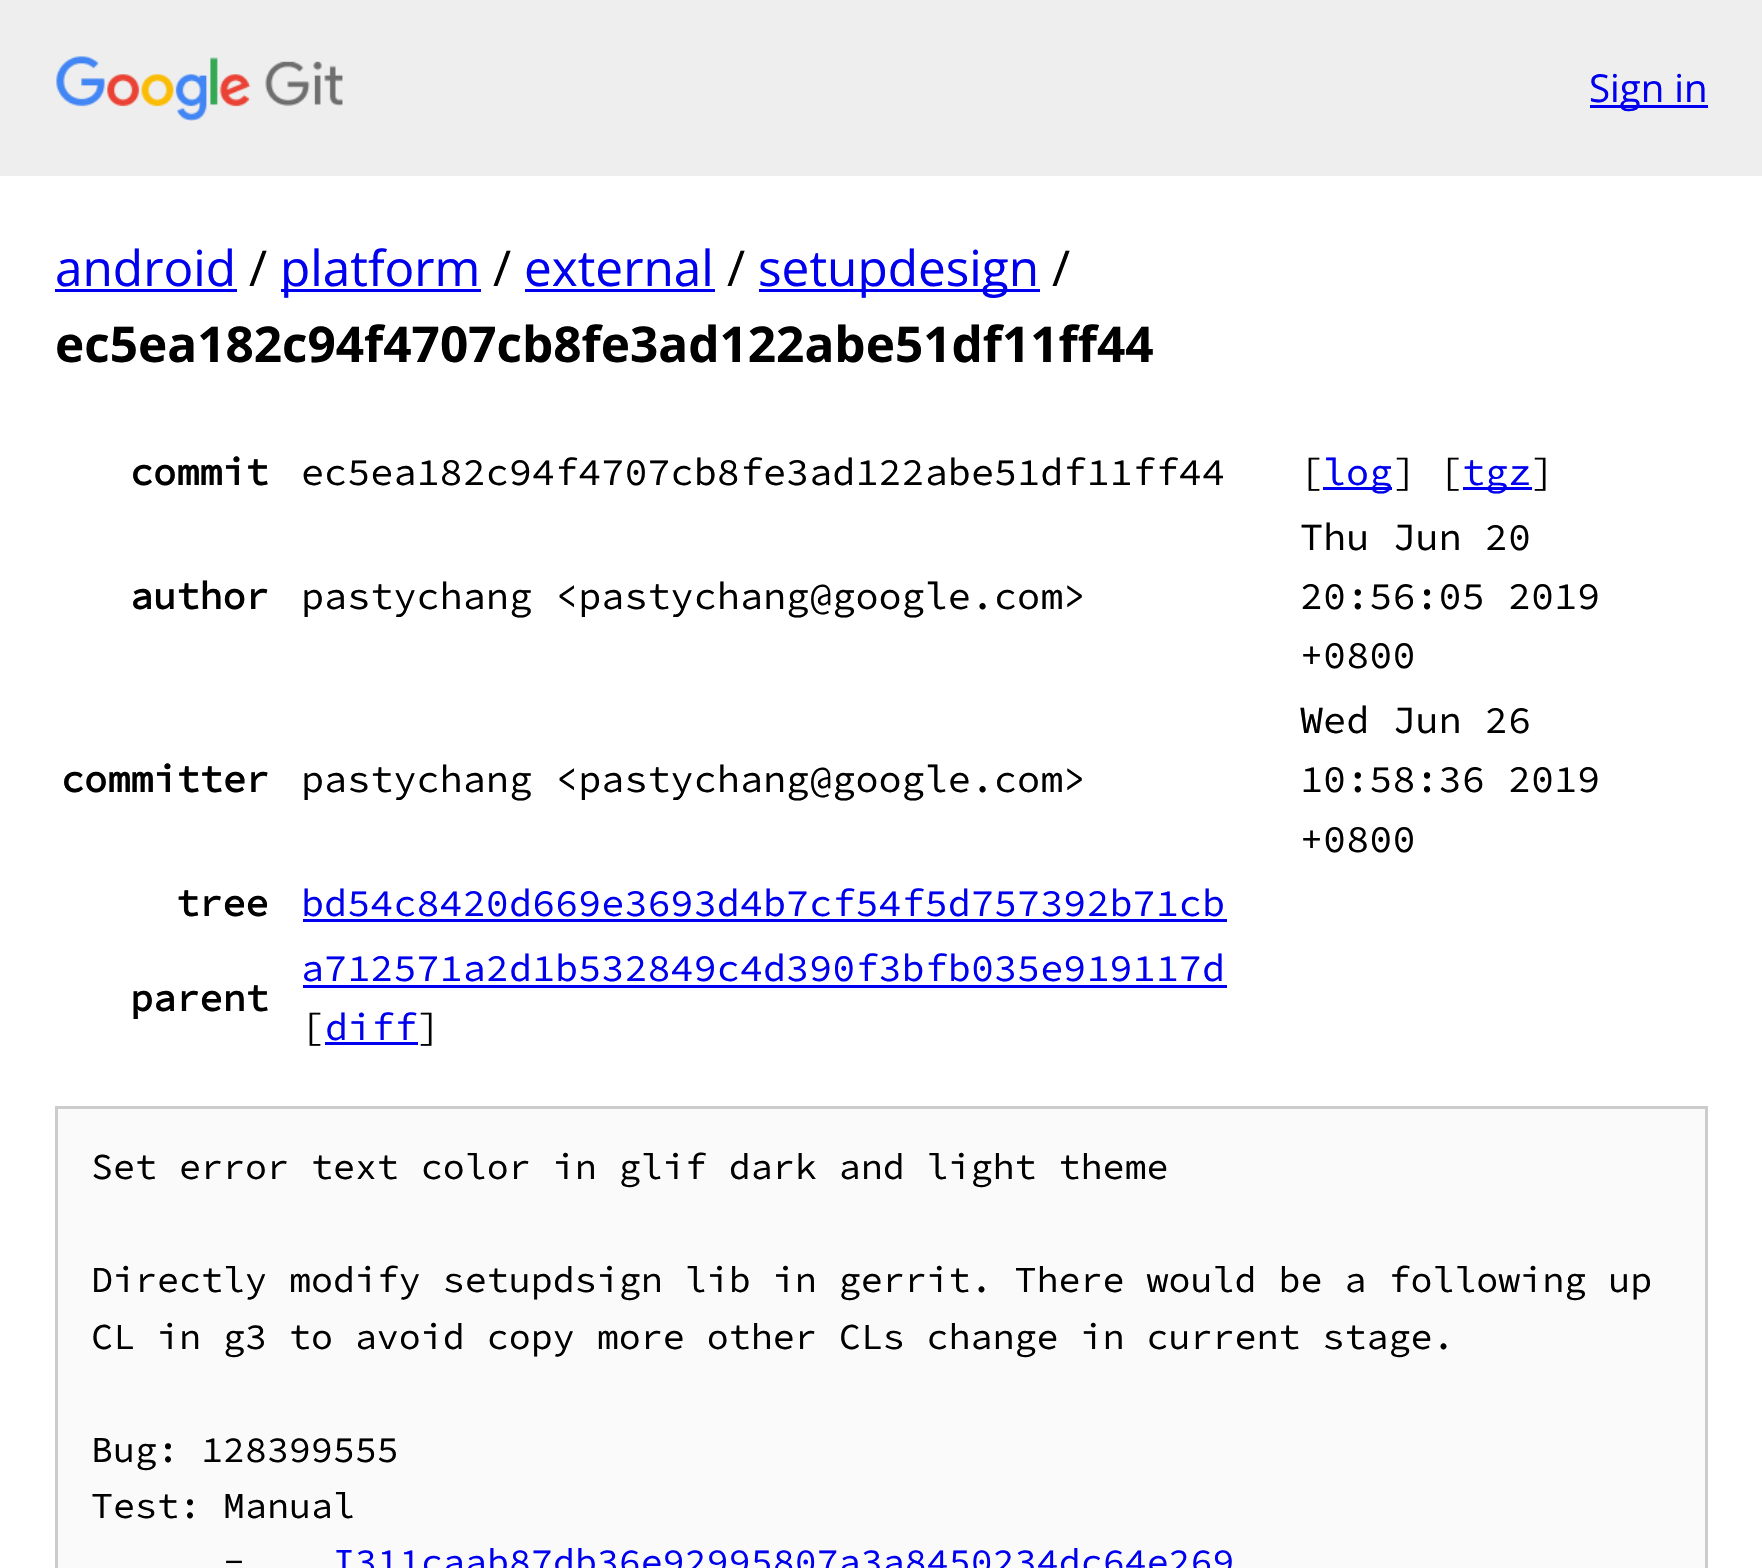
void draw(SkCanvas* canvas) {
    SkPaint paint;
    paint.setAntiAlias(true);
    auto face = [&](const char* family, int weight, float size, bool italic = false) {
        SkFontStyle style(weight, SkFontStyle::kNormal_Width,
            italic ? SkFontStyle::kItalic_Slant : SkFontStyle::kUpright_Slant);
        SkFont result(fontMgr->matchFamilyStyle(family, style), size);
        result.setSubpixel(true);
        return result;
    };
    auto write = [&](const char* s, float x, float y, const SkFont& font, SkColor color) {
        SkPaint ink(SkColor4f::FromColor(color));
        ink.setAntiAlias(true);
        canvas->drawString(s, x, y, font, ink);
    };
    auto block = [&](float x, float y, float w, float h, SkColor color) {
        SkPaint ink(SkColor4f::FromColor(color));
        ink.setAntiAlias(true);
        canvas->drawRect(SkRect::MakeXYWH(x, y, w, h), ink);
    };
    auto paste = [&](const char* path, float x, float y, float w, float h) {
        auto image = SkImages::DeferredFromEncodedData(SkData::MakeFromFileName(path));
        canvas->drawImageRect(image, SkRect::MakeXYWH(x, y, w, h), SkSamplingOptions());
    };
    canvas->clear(SK_ColorWHITE);
    block(0, 0, 1762, 176, SkColorSetRGB(238, 238, 238));
    paste("pic1.png", 56, 56, 287, 65);
    block(1590, 105, 118, 3, SkColorSetRGB(0, 0, 238));
    auto kFont1 = face("Open Sans", 400, 38.5f);
    write("Sign in", 1589, 102, kFont1, SkColorSetRGB(0, 0, 238));
    auto kFont2 = face("Open Sans", 400, 49.5f);
    write("android", 55, 286, kFont2, SkColorSetRGB(0, 0, 238));
    block(55, 289, 182, 3, SkColorSetRGB(0, 0, 238));
    write("/", 249, 286, kFont2, SK_ColorBLACK);
    block(281, 289, 200, 3, SkColorSetRGB(0, 0, 238));
    write("platform", 280, 286, kFont2, SkColorSetRGB(0, 0, 238));
    write("/", 493, 286, kFont2, SK_ColorBLACK);
    write("external", 524, 286, kFont2, SkColorSetRGB(0, 0, 238));
    block(525, 289, 190, 3, SkColorSetRGB(0, 0, 238));
    write("/", 727, 286, kFont2, SK_ColorBLACK);
    block(759, 289, 281, 3, SkColorSetRGB(0, 0, 238));
    write("setupdesign", 758, 286, kFont2, SkColorSetRGB(0, 0, 238));
    write("/", 1052, 286, kFont2, SK_ColorBLACK);
    auto kFont3 = face("Open Sans", 700, 49.5f);
    write("ec5ea182c94f4707cb8fe3ad122abe51df11ff44", 55, 362, kFont3, SK_ColorBLACK);
    auto kFont4 = face("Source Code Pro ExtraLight", 700, 38.5f);
    write("commit", 130, 485, kFont4, SK_ColorBLACK);
    auto kFont5 = face("Source Code Pro ExtraLight", 200, 38.5f);
    write("ec5ea182c94f4707cb8fe3ad122abe51df11ff44", 301, 485, kFont5, SK_ColorBLACK);
    write("[", 1300, 485, kFont5, SK_ColorBLACK);
    block(1323, 487, 69, 3, SkColorSetRGB(0, 0, 238));
    write("log", 1323, 485, kFont5, SkColorSetRGB(0, 0, 238));
    write("] [", 1393, 485, kFont5, SK_ColorBLACK);
    block(1463, 487, 69, 3, SkColorSetRGB(0, 0, 238));
    write("tgz", 1462, 485, kFont5, SkColorSetRGB(0, 0, 238));
    write("]", 1531, 485, kFont5, SK_ColorBLACK);
    write("author", 130, 609, kFont4, SK_ColorBLACK);
    write("pastychang <pastychang@google.com>", 301, 609, kFont5, SK_ColorBLACK);
    write("Thu Jun 20", 1300, 550, kFont5, SK_ColorBLACK);
    write("20:56:05 2019", 1300, 609, kFont5, SK_ColorBLACK);
    write("+0800", 1300, 668, kFont5, SK_ColorBLACK);
    write("committer", 61, 792, kFont4, SK_ColorBLACK);
    write("pastychang <pastychang@google.com>", 301, 792, kFont5, SK_ColorBLACK);
    write("Wed Jun 26", 1300, 733, kFont5, SK_ColorBLACK);
    write("10:58:36 2019", 1300, 792, kFont5, SK_ColorBLACK);
    write("+0800", 1300, 852, kFont5, SK_ColorBLACK);
    write("tree", 176, 916, kFont4, SK_ColorBLACK);
    write("bd54c8420d669e3693d4b7cf54f5d757392b71cb", 301, 916, kFont5, SkColorSetRGB(0, 0, 238));
    block(303, 919, 924, 3, SkColorSetRGB(0, 0, 238));
    write("parent", 130, 1011, kFont4, SK_ColorBLACK);
    write("a712571a2d1b532849c4d390f3bfb035e919117d", 301, 981, kFont5, SkColorSetRGB(0, 0, 238));
    block(303, 985, 924, 3, SkColorSetRGB(0, 0, 238));
    write("[", 301, 1040, kFont5, SK_ColorBLACK);
    write("diff", 325, 1040, kFont5, SkColorSetRGB(0, 0, 238));
    write("]", 417, 1040, kFont5, SK_ColorBLACK);
    block(325, 1042, 93, 3, SkColorSetRGB(0, 0, 238));
    paint.setColor(SkColorSetRGB(250, 250, 250));
    canvas->drawRect(SkRect::MakeXYWH(56.5f, 1107.5f, 1650, 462), paint);
    paint.setStyle(SkPaint::kStroke_Style);
    paint.setStrokeWidth(3);
    paint.setColor(SkColorSetRGB(204, 204, 204));
    canvas->drawRect(SkRect::MakeXYWH(56.5f, 1107.5f, 1650, 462), paint);
    auto kFont6 = face("Source Code Pro ExtraLight", 200, 36.65f);
    write("Set error text color in glif dark and light theme", 91, 1179, kFont6, SK_ColorBLACK);
    write("Directly modify setupdsign lib in gerrit. There would be a following up", 91, 1292, kFont6, SK_ColorBLACK);
    write("CL in g3 to avoid copy more other CLs change in current stage.", 91, 1349, kFont6, SK_ColorBLACK);
    write("Bug: 128399555", 91, 1462, kFont6, SK_ColorBLACK);
    write("Test: Manual", 91, 1518, kFont6, SK_ColorBLACK);
    write("-", 223, 1574, kFont6, SK_ColorBLACK);
    write("I311caab87db36e92995807a3a8450234dc64e269", 333, 1574, kFont6, SkColorSetRGB(0, 0, 238));
}
